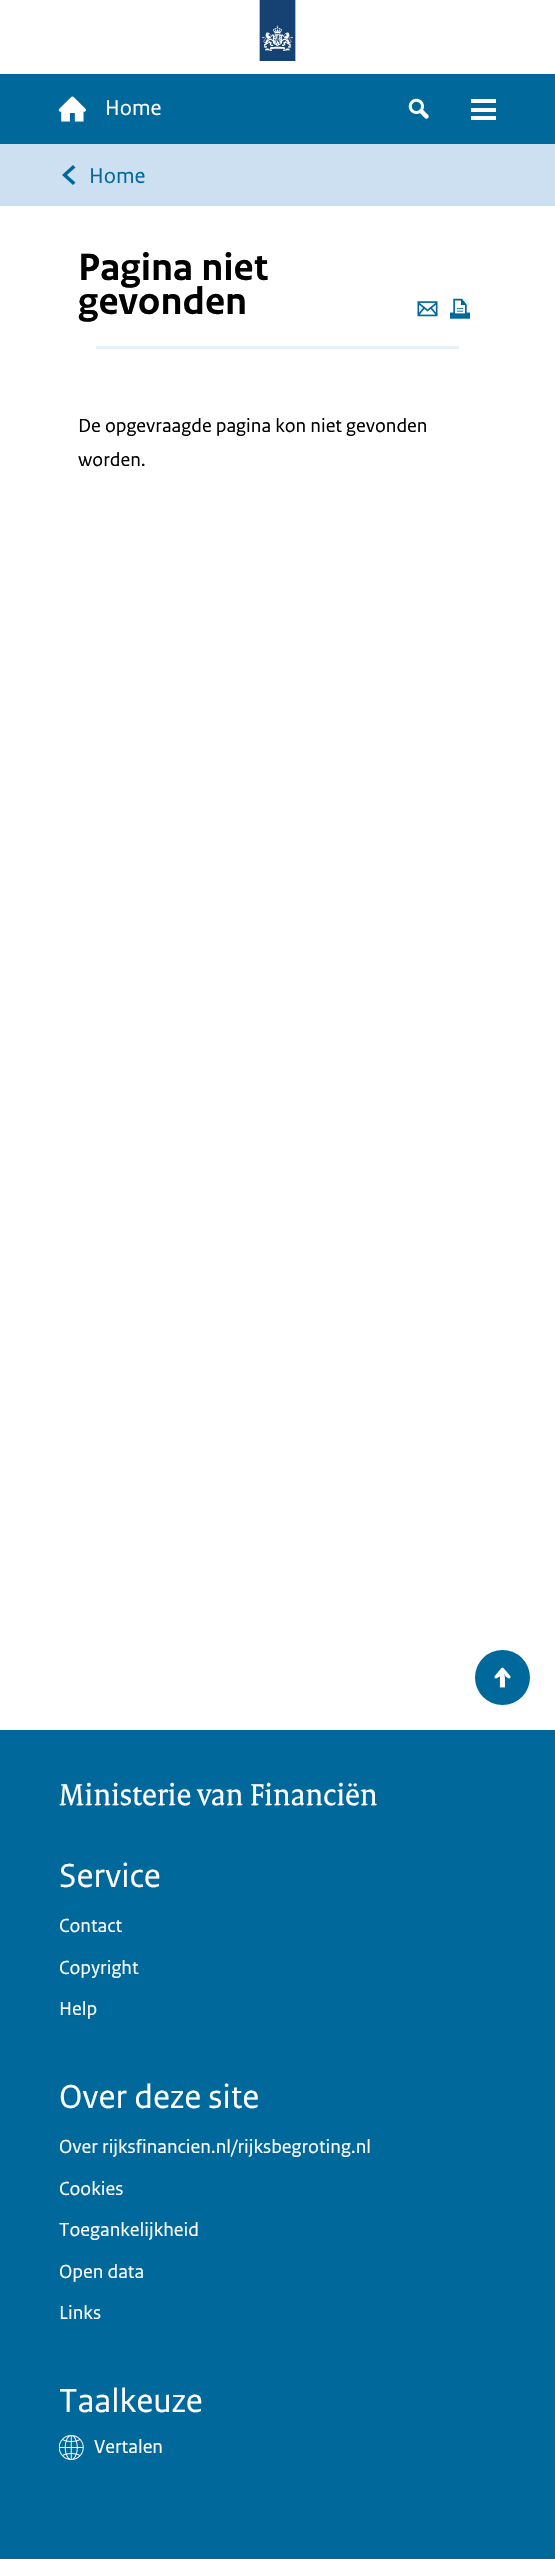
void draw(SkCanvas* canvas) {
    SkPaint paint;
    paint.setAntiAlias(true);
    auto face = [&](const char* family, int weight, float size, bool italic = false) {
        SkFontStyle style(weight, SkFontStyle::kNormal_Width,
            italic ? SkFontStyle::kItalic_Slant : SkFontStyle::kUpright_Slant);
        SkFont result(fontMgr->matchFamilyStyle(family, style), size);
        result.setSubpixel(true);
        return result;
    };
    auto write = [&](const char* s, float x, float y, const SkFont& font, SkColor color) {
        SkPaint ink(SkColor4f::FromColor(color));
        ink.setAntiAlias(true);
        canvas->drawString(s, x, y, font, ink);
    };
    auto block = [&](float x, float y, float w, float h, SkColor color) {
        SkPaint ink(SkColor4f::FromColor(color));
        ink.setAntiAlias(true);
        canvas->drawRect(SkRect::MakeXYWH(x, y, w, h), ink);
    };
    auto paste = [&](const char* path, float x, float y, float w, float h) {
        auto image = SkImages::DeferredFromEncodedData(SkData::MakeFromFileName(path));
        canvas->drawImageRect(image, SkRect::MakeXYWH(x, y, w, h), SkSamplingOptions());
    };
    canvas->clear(SK_ColorWHITE);
    paste("pic1.png", 259, 0, 37, 61);
    block(0, 74, 555, 70, SkColorSetRGB(1, 104, 155));
    paste("pic2.png", 58, 96, 28, 26);
    auto kFont1 = face("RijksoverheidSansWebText", 400, 22.5f);
    write("Home", 105, 115, kFont1, SK_ColorWHITE);
    paste("pic3.png", 408, 98, 21, 21);
    block(471, 99, 25, 4, SK_ColorWHITE);
    block(471, 108, 25, 4, SK_ColorWHITE);
    block(471, 116, 25, 4, SK_ColorWHITE);
    block(0, 144, 555, 62, SkColorSetRGB(204, 224, 241));
    paint.setColor(SkColorSetRGB(1, 104, 155));
    canvas->drawPath(SkPathBuilder().moveTo(73, 185).lineTo(75.5f, 182.5f).lineTo(67, 175).lineTo(75.5f, 167.5f).lineTo(73, 165).lineTo(62, 175).close().detach(), paint);
    write("Home", 89, 183, kFont1, SkColorSetRGB(1, 104, 155));
    auto kFont2 = face("RijksoverheidSansWebText", 700, 40);
    write("Pagina niet", 78, 280, kFont2, SK_ColorBLACK);
    write("gevonden", 78, 314, kFont2, SK_ColorBLACK);
    paste("pic4.png", 417, 301, 21, 16);
    paste("pic5.png", 450, 298, 20, 21);
    block(96, 346, 363, 3, SkColorSetRGB(229, 240, 249));
    auto kFont3 = face("RijksoverheidSansWebText", 400, 20);
    write("De opgevraagde pagina kon niet gevonden", 78, 432, kFont3, SK_ColorBLACK);
    write("worden.", 78, 466, kFont3, SK_ColorBLACK);
    canvas->drawCircle(502.5f, 1677.5f, 27.5f, paint);
    paste("pic6.png", 494, 1667, 17, 21);
    block(0, 1730, 555, 829, SkColorSetRGB(1, 104, 155));
    auto kFont4 = face("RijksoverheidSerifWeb", 400, 32.5f);
    write("Ministerie van Financiën", 59, 1805, kFont4, SK_ColorWHITE);
    auto kFont5 = face("RijksoverheidSansWebText", 400, 35);
    write("Service", 59, 1887, kFont5, SK_ColorWHITE);
    write("Contact", 59, 1932, kFont3, SK_ColorWHITE);
    write("Copyright", 59, 1974, kFont3, SK_ColorWHITE);
    write("Help", 59, 2015, kFont3, SK_ColorWHITE);
    write("Over deze site", 59, 2108, kFont5, SK_ColorWHITE);
    write("Over rijksfinancien.nl/rijksbegroting.nl", 59, 2153, kFont3, SK_ColorWHITE);
    write("Cookies", 59, 2195, kFont3, SK_ColorWHITE);
    write("Toegankelijkheid", 59, 2236, kFont3, SK_ColorWHITE);
    write("Open data", 59, 2278, kFont3, SK_ColorWHITE);
    write("Links", 59, 2319, kFont3, SK_ColorWHITE);
    write("Taalkeuze", 59, 2412, kFont5, SK_ColorWHITE);
    paste("pic7.png", 59, 2435, 25, 25);
    write("Vertalen", 94, 2453, kFont3, SK_ColorWHITE);
}
